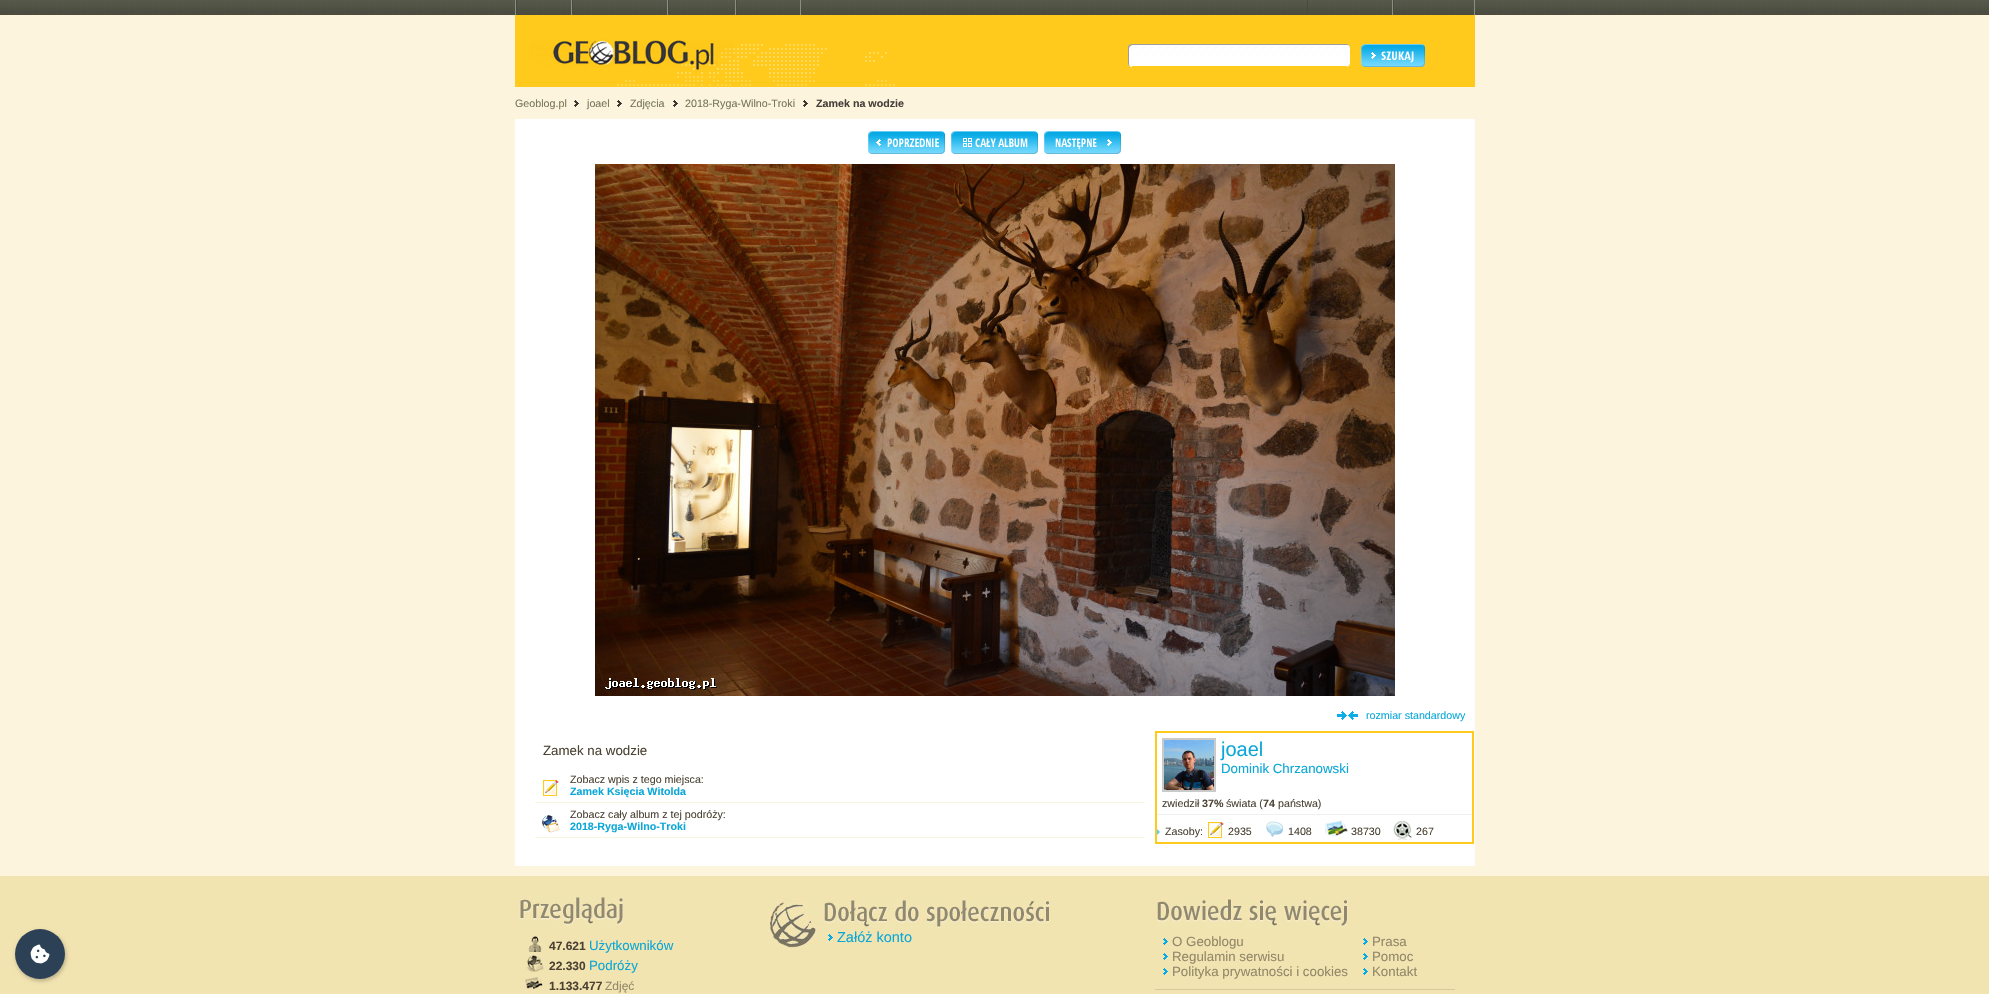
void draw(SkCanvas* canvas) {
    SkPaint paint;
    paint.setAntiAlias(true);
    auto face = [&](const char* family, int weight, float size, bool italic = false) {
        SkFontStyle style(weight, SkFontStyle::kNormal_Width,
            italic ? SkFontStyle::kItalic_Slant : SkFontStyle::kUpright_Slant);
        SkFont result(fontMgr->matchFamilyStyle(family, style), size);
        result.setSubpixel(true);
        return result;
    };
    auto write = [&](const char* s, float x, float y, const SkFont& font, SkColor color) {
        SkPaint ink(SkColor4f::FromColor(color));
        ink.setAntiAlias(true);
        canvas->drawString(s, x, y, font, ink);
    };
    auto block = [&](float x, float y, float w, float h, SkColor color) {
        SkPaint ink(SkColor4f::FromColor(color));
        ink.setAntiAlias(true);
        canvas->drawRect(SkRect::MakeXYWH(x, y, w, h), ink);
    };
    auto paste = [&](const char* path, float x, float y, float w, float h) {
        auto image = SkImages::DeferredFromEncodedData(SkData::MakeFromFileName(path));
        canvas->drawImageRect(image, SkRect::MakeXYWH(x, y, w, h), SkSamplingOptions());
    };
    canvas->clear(SkColorSetRGB(252, 244, 221));
    paste("pic1.png", 0, 0, 1989, 15);
    block(515, 0, 1, 15, SkColorSetRGB(140, 141, 131));
    block(571, 0, 1, 15, SkColorSetRGB(140, 141, 131));
    block(516, 0, 1, 15, SkColorSetRGB(73, 74, 65));
    block(667, 0, 1, 15, SkColorSetRGB(140, 141, 131));
    block(572, 0, 1, 15, SkColorSetRGB(73, 74, 65));
    block(735, 0, 1, 15, SkColorSetRGB(140, 141, 131));
    block(668, 0, 1, 15, SkColorSetRGB(73, 74, 65));
    block(800, 0, 1, 15, SkColorSetRGB(140, 141, 131));
    block(736, 0, 1, 15, SkColorSetRGB(73, 74, 65));
    block(1392, 0, 1, 15, SkColorSetRGB(140, 141, 131));
    block(1307, 0, 1, 15, SkColorSetRGB(73, 74, 65));
    block(1474, 0, 1, 15, SkColorSetRGB(140, 141, 131));
    block(1393, 0, 1, 15, SkColorSetRGB(73, 74, 65));
    block(515, 15, 960, 72, SkColorSetRGB(255, 202, 28));
    paste("pic2.png", 515, 39, 380, 48);
    paste("pic3.png", 1128, 43, 4, 25);
    block(1132, 65, 215, 1, SK_ColorWHITE);
    paste("pic4.png", 1132, 43, 215, 22);
    paste("pic5.png", 1347, 43, 4, 25);
    paste("pic6.png", 1361, 44, 64, 23);
    auto kFont1 = face("Liberation Sans", 400, 10.7f);
    write("Geoblog.pl", 515, 107, kFont1, SkColorSetRGB(118, 118, 92));
    paste("pic7.png", 574, 100, 5, 7);
    write("joael", 587, 107, kFont1, SkColorSetRGB(118, 118, 92));
    paste("pic7.png", 617, 100, 5, 7);
    write("Zdjęcia", 630, 107, kFont1, SkColorSetRGB(118, 118, 92));
    paste("pic7.png", 673, 100, 5, 7);
    write("2018-Ryga-Wilno-Troki", 685, 107, kFont1, SkColorSetRGB(118, 118, 92));
    paste("pic7.png", 803, 100, 5, 7);
    auto kFont2 = face("Liberation Sans", 700, 10.7f);
    write("Zamek na wodzie", 816, 107, kFont2, SkColorSetRGB(68, 63, 57));
    block(515, 119, 960, 747, SK_ColorWHITE);
    paste("pic8.png", 868, 131, 77, 23);
    paste("pic9.png", 951, 131, 87, 23);
    paste("pic10.png", 1044, 131, 77, 23);
    paste("pic11.png", 595, 164, 800, 532);
    paste("pic12.png", 1337, 711, 21, 9);
    write("rozmiar standardowy", 1366, 719, kFont1, SkColorSetRGB(11, 167, 216));
    auto kFont3 = face("Liberation Sans", 400, 13.3f);
    write("Zamek na wodzie", 543, 755, kFont3, SkColorSetRGB(75, 66, 51));
    block(535, 802, 610, 1, SkColorSetRGB(250, 245, 223));
    paste("pic13.png", 543, 780, 16, 16);
    write("Zobacz wpis z tego miejsca:", 570, 783, kFont1, SkColorSetRGB(75, 66, 51));
    write("Zamek Księcia Witolda", 570, 795, kFont2, SkColorSetRGB(11, 167, 216));
    block(535, 837, 610, 1, SkColorSetRGB(250, 245, 223));
    paste("pic14.png", 542, 815, 18, 18);
    write("Zobacz cały album z tej podróży:", 570, 818, kFont1, SkColorSetRGB(75, 66, 51));
    write("2018-Ryga-Wilno-Troki", 570, 830, kFont2, SkColorSetRGB(11, 167, 216));
    paint.setStyle(SkPaint::kStroke_Style);
    paint.setStrokeWidth(2);
    paint.setColor(SkColorSetRGB(255, 202, 28));
    canvas->drawRect(SkRect::MakeXYWH(1156, 732, 317, 111), paint);
    block(1157, 814, 315, 1, SkColorSetRGB(240, 240, 240));
    paint.setColor(SkColorSetRGB(202, 202, 202));
    canvas->drawRect(SkRect::MakeXYWH(1163, 739, 52, 52), paint);
    paste("pic15.png", 1164, 740, 50, 50);
    auto kFont4 = face("Liberation Sans", 400, 20);
    write("joael", 1221, 756, kFont4, SkColorSetRGB(11, 167, 216));
    write("Dominik Chrzanowski", 1221, 773, kFont3, SkColorSetRGB(11, 167, 216));
    write("zwiedził", 1162, 807, kFont1, SkColorSetRGB(75, 66, 51));
    write("37%", 1202, 807, kFont2, SkColorSetRGB(75, 66, 51));
    write("świata (", 1226, 807, kFont1, SkColorSetRGB(75, 66, 51));
    write("74", 1263, 807, kFont2, SkColorSetRGB(75, 66, 51));
    write("państwa)", 1278, 807, kFont1, SkColorSetRGB(75, 66, 51));
    paste("pic16.png", 1157, 829, 3, 6);
    write("Zasoby:", 1165, 835, kFont1, SkColorSetRGB(75, 66, 51));
    paste("pic13.png", 1208, 822, 16, 16);
    write("2935", 1228, 835, kFont1, SkColorSetRGB(75, 66, 51));
    paste("pic17.png", 1266, 821, 17, 16);
    write("1408", 1288, 835, kFont1, SkColorSetRGB(75, 66, 51));
    paste("pic18.png", 1325, 820, 23, 17);
    write("38730", 1351, 835, kFont1, SkColorSetRGB(75, 66, 51));
    paste("pic19.png", 1393, 820, 19, 20);
    write("267", 1416, 835, kFont1, SkColorSetRGB(75, 66, 51));
    block(0, 876, 1989, 118, SkColorSetRGB(242, 228, 177));
    paint.setStyle(SkPaint::kFill_Style);
    paint.setColor(SkColorSetARGB(64, 0, 0, 0));
    paint.setMaskFilter(SkMaskFilter::MakeBlur(kNormal_SkBlurStyle, 2));
    canvas->drawRoundRect(SkRect::MakeXYWH(16, 931, 50, 50), 25, 25, paint);
    paint.setMaskFilter(nullptr);
    paint.setColor(SkColorSetRGB(45, 65, 86));
    canvas->drawCircle(40, 954, 25, paint);
    paste("pic20.png", 30, 944, 20, 20);
    paste("pic21.png", 767, 898, 52, 52);
    paste("pic22.png", 820, 898, 234, 31);
    paste("pic23.png", 825, 932, 9, 12);
    auto kFont5 = face("Liberation Sans", 400, 14.5f);
    write("Załóż konto", 837, 942, kFont5, SkColorSetRGB(11, 167, 216));
    paste("pic24.png", 519, 896, 104, 32);
    paste("pic25.png", 526, 936, 16, 16);
    auto kFont6 = face("Liberation Sans", 700, 12);
    write("47.621", 549, 950, kFont6, SkColorSetRGB(75, 66, 51));
    write("Użytkowników", 589, 950, kFont3, SkColorSetRGB(11, 167, 216));
    paste("pic26.png", 526, 955, 18, 17);
    write("22.330", 549, 970, kFont6, SkColorSetRGB(75, 66, 51));
    write("Podróży", 589, 970, kFont3, SkColorSetRGB(11, 167, 216));
    paste("pic27.png", 525, 976, 19, 16);
    write("1.133.477", 549, 990, kFont6, SkColorSetRGB(75, 66, 51));
    auto kFont7 = face("Liberation Sans", 400, 12);
    write("Zdjęć", 605, 990, kFont7, SkColorSetRGB(146, 136, 106));
    paste("pic28.png", 1157, 898, 192, 31);
    block(1155, 989, 300, 1, SkColorSetRGB(215, 201, 154));
    paste("pic23.png", 1160, 936, 9, 12);
    write("O Geoblogu", 1172, 946, kFont3, SkColorSetRGB(146, 136, 106));
    paste("pic23.png", 1160, 951, 9, 12);
    write("Regulamin serwisu", 1172, 961, kFont3, SkColorSetRGB(146, 136, 106));
    paste("pic23.png", 1160, 966, 9, 12);
    write("Polityka prywatności i cookies", 1172, 976, kFont3, SkColorSetRGB(146, 136, 106));
    paste("pic23.png", 1360, 936, 9, 12);
    write("Prasa", 1372, 946, kFont3, SkColorSetRGB(146, 136, 106));
    paste("pic23.png", 1360, 951, 9, 12);
    write("Pomoc", 1372, 961, kFont3, SkColorSetRGB(146, 136, 106));
    paste("pic23.png", 1360, 966, 9, 12);
    write("Kontakt", 1372, 976, kFont3, SkColorSetRGB(146, 136, 106));
}
